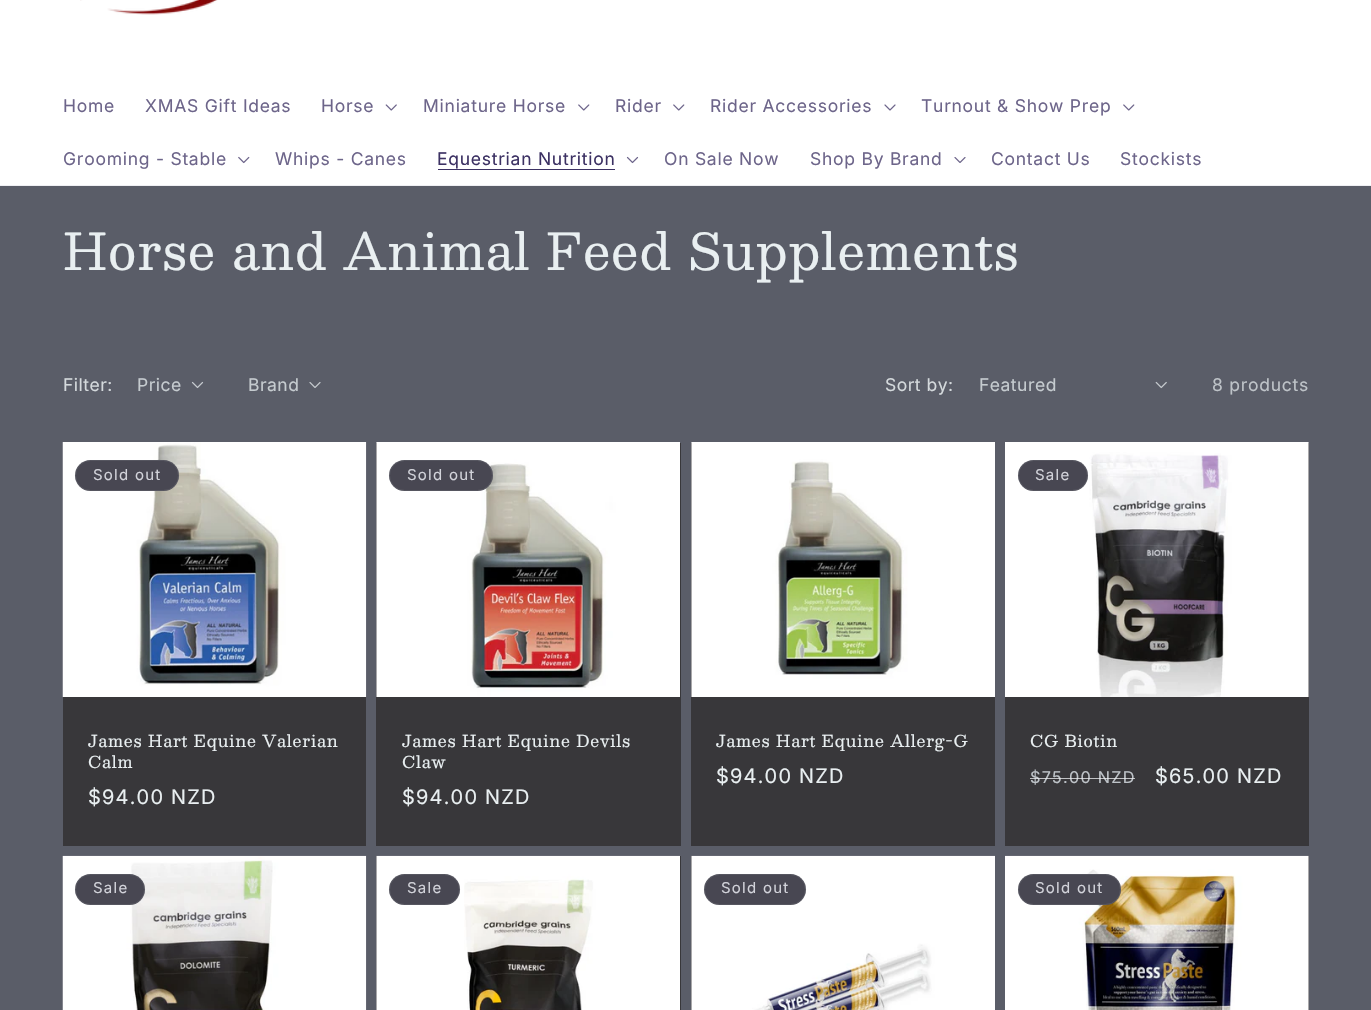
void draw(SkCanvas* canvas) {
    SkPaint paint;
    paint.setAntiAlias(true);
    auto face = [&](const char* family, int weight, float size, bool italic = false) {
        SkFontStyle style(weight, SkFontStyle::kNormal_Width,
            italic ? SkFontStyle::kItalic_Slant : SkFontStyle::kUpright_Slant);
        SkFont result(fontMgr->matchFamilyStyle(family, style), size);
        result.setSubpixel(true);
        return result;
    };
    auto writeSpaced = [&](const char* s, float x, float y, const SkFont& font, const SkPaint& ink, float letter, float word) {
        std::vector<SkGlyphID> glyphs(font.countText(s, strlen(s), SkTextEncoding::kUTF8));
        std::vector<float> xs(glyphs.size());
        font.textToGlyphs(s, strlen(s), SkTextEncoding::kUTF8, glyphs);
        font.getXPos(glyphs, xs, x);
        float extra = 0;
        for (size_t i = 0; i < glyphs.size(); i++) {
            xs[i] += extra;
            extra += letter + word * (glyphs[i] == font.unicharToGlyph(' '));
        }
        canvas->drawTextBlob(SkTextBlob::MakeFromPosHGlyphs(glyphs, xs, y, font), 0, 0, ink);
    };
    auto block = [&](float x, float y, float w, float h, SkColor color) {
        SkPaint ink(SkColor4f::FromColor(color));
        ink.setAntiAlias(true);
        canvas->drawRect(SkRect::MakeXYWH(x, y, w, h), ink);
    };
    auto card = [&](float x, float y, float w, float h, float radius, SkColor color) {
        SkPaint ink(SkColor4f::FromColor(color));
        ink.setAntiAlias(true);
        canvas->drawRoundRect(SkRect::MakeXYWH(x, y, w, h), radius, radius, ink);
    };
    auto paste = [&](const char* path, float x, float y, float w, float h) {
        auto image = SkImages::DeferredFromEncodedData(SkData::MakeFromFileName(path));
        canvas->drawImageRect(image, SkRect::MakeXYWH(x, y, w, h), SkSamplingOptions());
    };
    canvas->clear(SkColorSetRGB(90, 93, 104));
    block(0, 0, 1371, 185, SK_ColorWHITE);
    block(0, 185, 1371, 1, SkColorSetRGB(239, 239, 243));
    paste("pic1.png", 80, 0, 138, 15);
    auto kFont1 = face("Inter", 400, 17.5f);
    paint.setColor(SkColorSetRGB(109, 101, 138));
    writeSpaced("Home", 63, 112, kFont1, paint, 0.75f, 0);
    writeSpaced("XMAS Gift Ideas", 145, 112, kFont1, paint, 0.75f, 0);
    writeSpaced("Horse", 321, 112, kFont1, paint, 0.75f, 0);
    paste("pic2.png", 385, 104, 12, 7);
    writeSpaced("Miniature Horse", 423, 112, kFont1, paint, 0.75f, 0);
    paste("pic3.png", 578, 104, 12, 7);
    writeSpaced("Rider", 615, 112, kFont1, paint, 0.75f, 0);
    paste("pic3.png", 673, 104, 12, 7);
    writeSpaced("Rider Accessories", 710, 112, kFont1, paint, 0.75f, 0);
    paste("pic4.png", 884, 104, 12, 7);
    writeSpaced("Turnout & Show Prep", 921, 112, kFont1, paint, 0.75f, 0);
    paste("pic3.png", 1123, 104, 12, 7);
    writeSpaced("Grooming - Stable", 63, 165, kFont1, paint, 0.75f, 0);
    paste("pic5.png", 238, 156, 12, 8);
    writeSpaced("Whips - Canes", 275, 165, kFont1, paint, 0.75f, 0);
    paint.setColor(SkColorSetRGB(60, 49, 99));
    writeSpaced("Equestrian Nutrition", 437, 165, kFont1, paint, 0.75f, 0);
    block(438, 169, 177, 1, SkColorSetRGB(60, 49, 99));
    paste("pic6.png", 626, 156, 13, 8);
    paint.setColor(SkColorSetRGB(109, 101, 138));
    writeSpaced("On Sale Now", 664, 165, kFont1, paint, 0.75f, 0);
    writeSpaced("Shop By Brand", 810, 165, kFont1, paint, 0.75f, 0);
    paste("pic7.png", 954, 157, 12, 6);
    writeSpaced("Contact Us", 991, 165, kFont1, paint, 0.75f, 0);
    writeSpaced("Stockists", 1120, 165, kFont1, paint, 0.75f, 0);
    auto kFont2 = face("Besley", 400, 50);
    paint.setColor(SkColorSetRGB(233, 239, 241));
    writeSpaced("Horse and Animal Feed Supplements", 63, 270, kFont2, paint, 0.75f, 0);
    paint.setColor(SkColorSetRGB(212, 217, 220));
    writeSpaced("Filter:", 63, 391, kFont1, paint, 0.5f, 0);
    paint.setColor(SkColorSetRGB(197, 203, 207));
    writeSpaced("Price", 137, 391, kFont1, paint, 0.5f, 0);
    paste("pic8.png", 191, 381, 13, 8);
    writeSpaced("Brand", 248, 391, kFont1, paint, 0.5f, 0);
    paste("pic9.png", 309, 382, 12, 6);
    paint.setColor(SkColorSetRGB(212, 217, 220));
    writeSpaced("Sort by:", 885, 391, kFont1, paint, 0.5f, 0);
    paint.setColor(SkColorSetRGB(197, 203, 207));
    writeSpaced("Featured", 979, 391, kFont1, paint, 0.5f, 0);
    paste("pic10.png", 1155, 381, 12, 8);
    paint.setColor(SkColorSetRGB(190, 195, 200));
    writeSpaced("8 products", 1212, 391, kFont1, paint, 0.75f, 0);
    block(63, 697, 303, 149, SkColorSetRGB(56, 55, 58));
    paste("pic11.png", 62, 442, 305, 255);
    card(75, 460, 104, 31, 15.5f, SkColorSetRGB(72, 71, 82));
    paint.setStyle(SkPaint::kStroke_Style);
    paint.setStrokeWidth(1);
    paint.setColor(SkColorSetARGB(26, 210, 211, 218));
    canvas->drawRoundRect(SkRect::MakeXYWH(75.5f, 460.5f, 103, 30), 15, 15, paint);
    auto kFont3 = face("Inter", 400, 15);
    paint.setStyle(SkPaint::kFill_Style);
    paint.setColor(SkColorSetRGB(210, 211, 218));
    writeSpaced("Sold out", 93, 480, kFont3, paint, 1.25f, 0);
    auto kFont4 = face("Besley", 400, 16.25f);
    paint.setColor(SkColorSetRGB(233, 239, 241));
    writeSpaced("James Hart Equine Valerian", 88, 747, kFont4, paint, 0.75f, 0);
    writeSpaced("Calm", 88, 768, kFont4, paint, 0.75f, 0);
    auto kFont5 = face("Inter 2", 400, 20);
    writeSpaced("$94.00 NZD", 88, 804, kFont5, paint, 1.25f, 0);
    block(376, 443, 305, 403, SkColorSetRGB(56, 55, 58));
    paste("pic12.png", 376, 442, 304, 255);
    card(389, 460, 104, 31, 15.5f, SkColorSetRGB(72, 71, 82));
    paint.setStyle(SkPaint::kStroke_Style);
    paint.setColor(SkColorSetARGB(26, 210, 211, 218));
    canvas->drawRoundRect(SkRect::MakeXYWH(389.5f, 460.5f, 103, 30), 15, 15, paint);
    paint.setStyle(SkPaint::kFill_Style);
    paint.setColor(SkColorSetRGB(210, 211, 218));
    writeSpaced("Sold out", 407, 480, kFont3, paint, 1.25f, 0);
    paint.setColor(SkColorSetRGB(233, 239, 241));
    writeSpaced("James Hart Equine Devils", 402, 747, kFont4, paint, 0.75f, 0);
    writeSpaced("Claw", 402, 768, kFont4, paint, 0.75f, 0);
    writeSpaced("$94.00 NZD", 402, 804, kFont5, paint, 1.25f, 0);
    block(691, 443, 304, 403, SkColorSetRGB(56, 55, 58));
    paste("pic13.png", 691, 442, 304, 255);
    writeSpaced("James Hart Equine Allerg-G", 716, 747, kFont4, paint, 0.75f, 0);
    writeSpaced("$94.00 NZD", 716, 783, kFont5, paint, 1.25f, 0);
    block(1005, 443, 304, 403, SkColorSetRGB(56, 55, 58));
    paste("pic14.png", 1005, 442, 304, 255);
    card(1018, 460, 70, 31, 15.5f, SkColorSetRGB(72, 71, 82));
    paint.setStyle(SkPaint::kStroke_Style);
    paint.setColor(SkColorSetARGB(26, 210, 211, 218));
    canvas->drawRoundRect(SkRect::MakeXYWH(1018.5f, 460.5f, 69, 30), 15, 15, paint);
    paint.setStyle(SkPaint::kFill_Style);
    paint.setColor(SkColorSetRGB(210, 211, 218));
    writeSpaced("Sale", 1035, 480, kFont3, paint, 1.25f, 0);
    paint.setColor(SkColorSetRGB(233, 239, 241));
    writeSpaced("CG Biotin", 1030, 747, kFont4, paint, 0.75f, 0);
    auto kFont6 = face("Inter", 400, 16.25f);
    paint.setColor(SkColorSetRGB(190, 195, 200));
    writeSpaced("$75.00 NZD", 1030, 783, kFont6, paint, 1.25f, 0);
    block(1030, 778, 105, 1, SkColorSetARGB(191, 238, 239, 241));
    paint.setColor(SkColorSetRGB(233, 239, 241));
    writeSpaced("$65.00 NZD", 1155, 783, kFont5, paint, 1.25f, 0);
    paste("pic15.png", 62, 855, 305, 155);
    card(75, 874, 70, 31, 15.5f, SkColorSetRGB(72, 71, 82));
    paint.setStyle(SkPaint::kStroke_Style);
    paint.setColor(SkColorSetARGB(26, 210, 211, 218));
    canvas->drawRoundRect(SkRect::MakeXYWH(75.5f, 874.5f, 69, 30), 15, 15, paint);
    paint.setStyle(SkPaint::kFill_Style);
    paint.setColor(SkColorSetRGB(210, 211, 218));
    writeSpaced("Sale", 93, 893, kFont3, paint, 1.25f, 0);
    block(376, 856, 305, 154, SkColorSetRGB(56, 55, 58));
    paste("pic16.png", 376, 855, 304, 155);
    card(389, 874, 71, 31, 15.5f, SkColorSetRGB(72, 71, 82));
    paint.setStyle(SkPaint::kStroke_Style);
    paint.setColor(SkColorSetARGB(26, 210, 211, 218));
    canvas->drawRoundRect(SkRect::MakeXYWH(389.5f, 874.5f, 70, 30), 15, 15, paint);
    paint.setStyle(SkPaint::kFill_Style);
    paint.setColor(SkColorSetRGB(210, 211, 218));
    writeSpaced("Sale", 407, 893, kFont3, paint, 1.25f, 0);
    block(691, 856, 1, 154, SkColorSetRGB(56, 55, 58));
    paste("pic17.png", 691, 855, 304, 155);
    card(704, 874, 102, 31, 15.5f, SkColorSetRGB(72, 71, 82));
    paint.setStyle(SkPaint::kStroke_Style);
    paint.setColor(SkColorSetARGB(26, 210, 211, 218));
    canvas->drawRoundRect(SkRect::MakeXYWH(704.5f, 874.5f, 101, 30), 15, 15, paint);
    paint.setStyle(SkPaint::kFill_Style);
    paint.setColor(SkColorSetRGB(210, 211, 218));
    writeSpaced("Sold out", 721, 893, kFont3, paint, 1.25f, 0);
    block(1308, 856, 1, 154, SkColorSetRGB(56, 55, 58));
    paste("pic18.png", 1005, 855, 304, 155);
    card(1018, 874, 103, 31, 15.5f, SkColorSetRGB(72, 71, 82));
    paint.setStyle(SkPaint::kStroke_Style);
    paint.setColor(SkColorSetARGB(26, 210, 211, 218));
    canvas->drawRoundRect(SkRect::MakeXYWH(1018.5f, 874.5f, 102, 30), 15, 15, paint);
    paint.setStyle(SkPaint::kFill_Style);
    paint.setColor(SkColorSetRGB(210, 211, 218));
    writeSpaced("Sold out", 1035, 893, kFont3, paint, 1.25f, 0);
}
